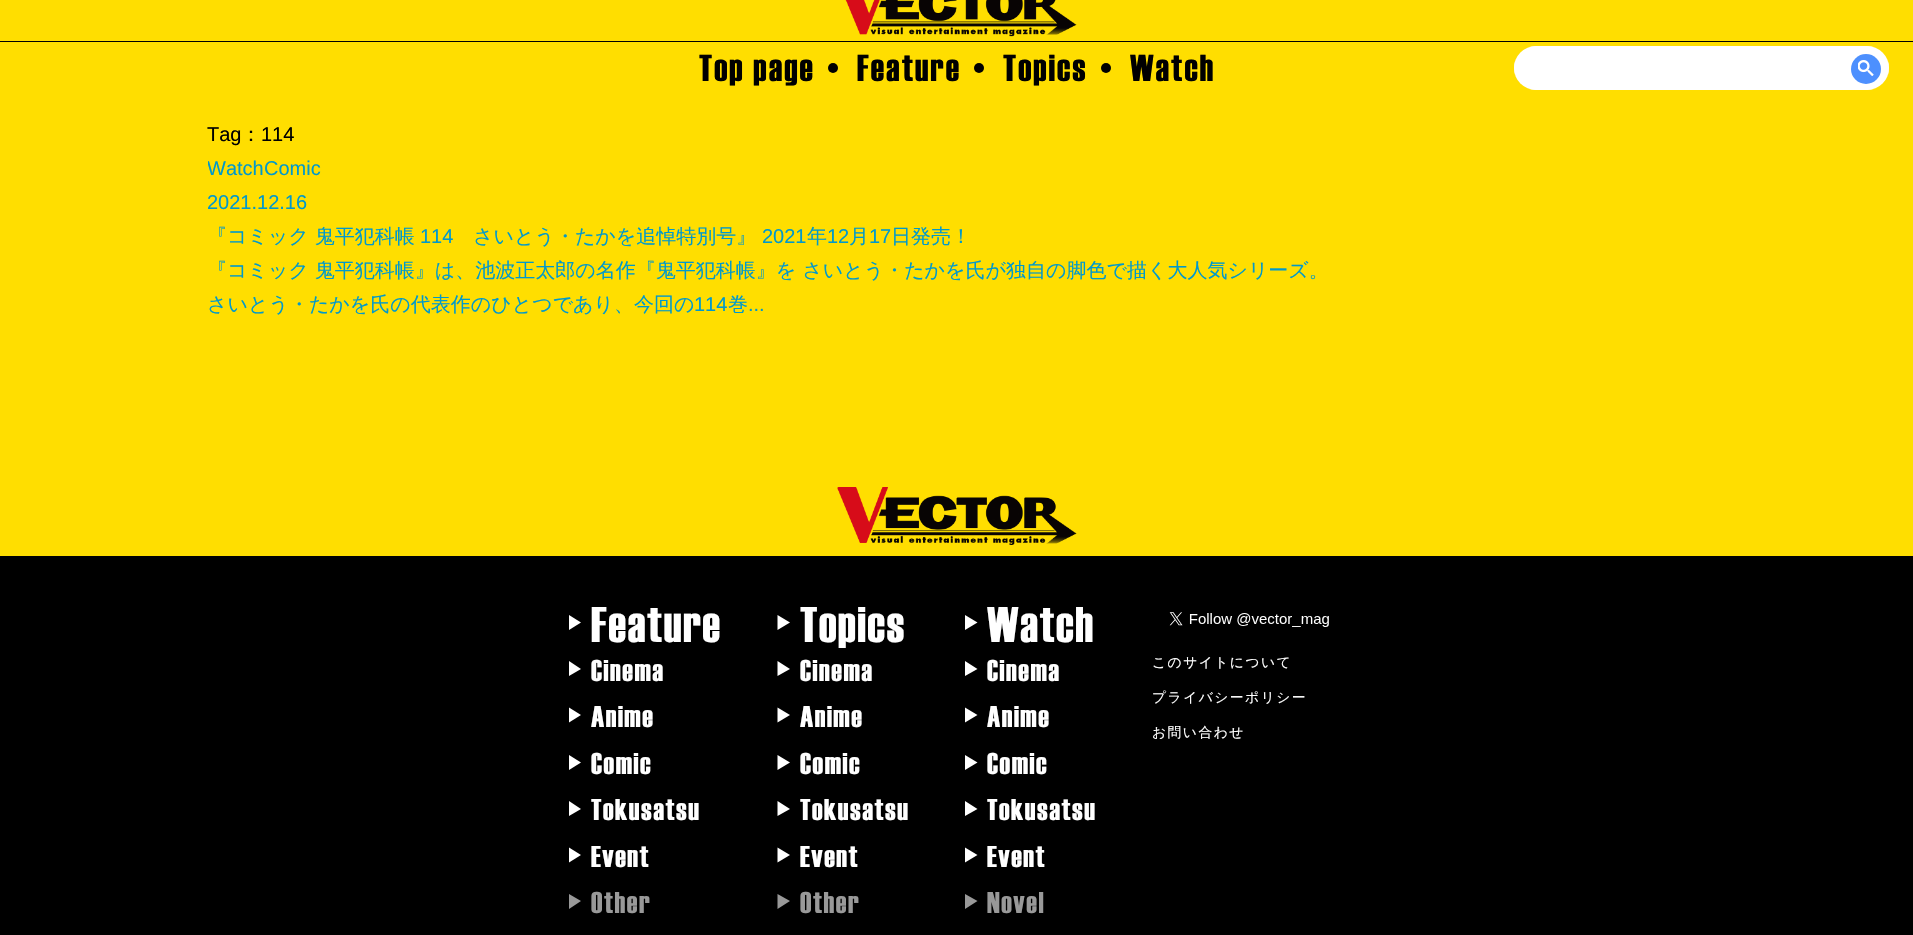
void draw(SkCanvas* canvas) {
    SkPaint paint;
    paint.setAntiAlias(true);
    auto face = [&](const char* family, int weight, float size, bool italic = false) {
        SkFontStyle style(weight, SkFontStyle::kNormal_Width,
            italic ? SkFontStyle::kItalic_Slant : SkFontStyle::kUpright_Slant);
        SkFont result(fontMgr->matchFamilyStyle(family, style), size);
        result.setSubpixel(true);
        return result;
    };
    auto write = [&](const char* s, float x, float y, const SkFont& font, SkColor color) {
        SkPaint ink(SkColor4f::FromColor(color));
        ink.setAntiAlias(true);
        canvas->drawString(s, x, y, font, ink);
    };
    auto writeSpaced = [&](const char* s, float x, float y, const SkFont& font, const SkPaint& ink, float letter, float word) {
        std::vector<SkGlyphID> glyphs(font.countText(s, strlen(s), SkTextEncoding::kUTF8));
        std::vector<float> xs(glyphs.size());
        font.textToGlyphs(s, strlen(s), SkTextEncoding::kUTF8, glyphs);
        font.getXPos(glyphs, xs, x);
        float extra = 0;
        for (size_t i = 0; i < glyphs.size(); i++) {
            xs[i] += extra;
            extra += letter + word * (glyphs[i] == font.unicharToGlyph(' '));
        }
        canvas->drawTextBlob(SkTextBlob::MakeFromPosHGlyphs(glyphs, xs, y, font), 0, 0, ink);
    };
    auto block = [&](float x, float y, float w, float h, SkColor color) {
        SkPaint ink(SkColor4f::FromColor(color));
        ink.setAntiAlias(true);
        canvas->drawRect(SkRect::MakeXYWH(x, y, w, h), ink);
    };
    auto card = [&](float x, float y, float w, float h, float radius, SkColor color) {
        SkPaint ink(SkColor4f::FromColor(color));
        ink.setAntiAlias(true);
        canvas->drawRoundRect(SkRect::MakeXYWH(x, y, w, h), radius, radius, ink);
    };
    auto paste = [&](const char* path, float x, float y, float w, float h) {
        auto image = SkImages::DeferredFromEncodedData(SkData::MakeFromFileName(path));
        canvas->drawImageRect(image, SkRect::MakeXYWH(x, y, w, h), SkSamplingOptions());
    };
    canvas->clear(SkColorSetRGB(255, 222, 0));
    block(0, 41, 1913, 1, SK_ColorBLACK);
    paste("pic1.png", 845, 0, 232, 37);
    auto kFont1 = face("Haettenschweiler", 500, 37.5f);
    paint.setColor(SK_ColorBLACK);
    writeSpaced("Top page", 699, 81, kFont1, paint, 2, 0);
    canvas->drawCircle(833, 68, 5, paint);
    writeSpaced("Feature", 857, 81, kFont1, paint, 2, 0);
    canvas->drawCircle(979, 68, 5, paint);
    writeSpaced("Topics", 1003, 81, kFont1, paint, 2, 0);
    canvas->drawCircle(1106, 68, 5, paint);
    writeSpaced("Watch", 1130, 81, kFont1, paint, 2, 0);
    card(1514, 46, 375, 44, 22, SK_ColorWHITE);
    paint.setColor(SK_ColorWHITE);
    canvas->drawPath(SkPathBuilder(SkPathFillType::kEvenOdd).moveTo(1536, 90).lineTo(1867, 90).lineTo(1874, 89).lineTo(1529, 89).close().moveTo(1515, 75).cubicTo(1514, 70, 1514, 66, 1515, 61).close().moveTo(1536, 46).lineTo(1529, 47).lineTo(1874, 47).lineTo(1867, 46).close().moveTo(1888, 61).lineTo(1888, 75).cubicTo(1889, 70, 1889, 66, 1888, 61).close().detach(), paint);
    paint.setColor(SkColorSetRGB(77, 144, 254));
    canvas->drawCircle(1866, 69, 15, paint);
    paste("pic2.png", 1858, 60, 16, 16);
    auto kFont2 = face("Liberation Sans", 400, 20);
    write("Tag", 207, 141, kFont2, SK_ColorBLACK);
    auto kFont3 = face("WenQuanYi Zen Hei", 500, 20);
    write("：", 241, 141, kFont3, SK_ColorBLACK);
    write("114", 261, 141, kFont2, SK_ColorBLACK);
    canvas->save();
    canvas->clipRect(SkRect::MakeXYWH(208, 118, 1500, 328));
    write("Watch", 207, 175, kFont2, SkColorSetRGB(0, 153, 204));
    canvas->restore();
    write("Comic", 264, 175, kFont2, SkColorSetRGB(0, 153, 204));
    write("2021.12.16", 207, 209, kFont2, SkColorSetRGB(0, 153, 204));
    write("『コミック 鬼平犯科帳", 207, 243, kFont3, SkColorSetRGB(0, 153, 204));
    write("114", 420, 243, kFont2, SkColorSetRGB(0, 153, 204));
    write("さいとう・たかを追悼特別号』", 473, 243, kFont3, SkColorSetRGB(0, 153, 204));
    write("2021", 762, 243, kFont2, SkColorSetRGB(0, 153, 204));
    write("年", 807, 243, kFont3, SkColorSetRGB(0, 153, 204));
    write("12", 827, 243, kFont2, SkColorSetRGB(0, 153, 204));
    write("月", 849, 243, kFont3, SkColorSetRGB(0, 153, 204));
    write("17", 869, 243, kFont2, SkColorSetRGB(0, 153, 204));
    write("日発売！", 891, 243, kFont3, SkColorSetRGB(0, 153, 204));
    write("『コミック 鬼平犯科帳』は、池波正太郎の名作『鬼平犯科帳』を さいとう・たかを氏が独自の脚色で描く大人気シリーズ。", 207, 277, kFont3, SkColorSetRGB(0, 153, 204));
    write("さいとう・たかを氏の代表作のひとつであり、今回の", 207, 311, kFont3, SkColorSetRGB(0, 153, 204));
    write("114", 694, 311, kFont2, SkColorSetRGB(0, 153, 204));
    write("巻", 728, 311, kFont3, SkColorSetRGB(0, 153, 204));
    write("...", 748, 311, kFont2, SkColorSetRGB(0, 153, 204));
    paste("pic3.png", 837, 487, 240, 58);
    block(0, 556, 1913, 379, SK_ColorBLACK);
    paint.setColor(SK_ColorWHITE);
    canvas->drawPath(SkPathBuilder().moveTo(569, 630).lineTo(569, 615).lineTo(581, 622.5f).close().detach(), paint);
    auto kFont4 = face("Haettenschweiler", 500, 50);
    writeSpaced("Feature", 591, 642, kFont4, paint, 1.5f, 0);
    canvas->drawPath(SkPathBuilder().moveTo(569, 676).lineTo(569, 661).lineTo(581, 669).close().detach(), paint);
    auto kFont5 = face("Haettenschweiler", 500, 30);
    writeSpaced("Cinema", 591, 681, kFont5, paint, 1.5f, 0);
    canvas->drawPath(SkPathBuilder().moveTo(569, 722.5f).lineTo(569, 707.5f).lineTo(581, 715).close().detach(), paint);
    writeSpaced("Anime", 591, 727, kFont5, paint, 1.5f, 0);
    canvas->drawPath(SkPathBuilder().moveTo(569, 770).lineTo(569, 755).lineTo(581, 762.5f).close().detach(), paint);
    writeSpaced("Comic", 591, 774, kFont5, paint, 1.5f, 0);
    canvas->drawPath(SkPathBuilder().moveTo(569, 816).lineTo(569, 801).lineTo(581, 809).close().detach(), paint);
    writeSpaced("Tokusatsu", 591, 820, kFont5, paint, 1.5f, 0);
    canvas->drawPath(SkPathBuilder().moveTo(569, 862.5f).lineTo(569, 847.5f).lineTo(581, 855).close().detach(), paint);
    writeSpaced("Event", 591, 867, kFont5, paint, 1.5f, 0);
    paint.setColor(SkColorSetRGB(153, 153, 153));
    canvas->drawPath(SkPathBuilder().moveTo(569, 909).lineTo(569, 894).lineTo(581, 901).close().detach(), paint);
    writeSpaced("Other", 591, 913, kFont5, paint, 1.5f, 0);
    paint.setColor(SK_ColorWHITE);
    canvas->drawPath(SkPathBuilder().moveTo(777.5f, 630).lineTo(777.5f, 615).lineTo(790, 622.5f).close().detach(), paint);
    writeSpaced("Topics", 800, 642, kFont4, paint, 1.5f, 0);
    canvas->drawPath(SkPathBuilder().moveTo(777.5f, 676).lineTo(777.5f, 661).lineTo(790, 669).close().detach(), paint);
    writeSpaced("Cinema", 800, 681, kFont5, paint, 1.5f, 0);
    canvas->drawPath(SkPathBuilder().moveTo(777.5f, 722.5f).lineTo(777.5f, 707.5f).lineTo(790, 715).close().detach(), paint);
    writeSpaced("Anime", 800, 727, kFont5, paint, 1.5f, 0);
    canvas->drawPath(SkPathBuilder().moveTo(777.5f, 770).lineTo(777.5f, 755).lineTo(790, 762.5f).close().detach(), paint);
    writeSpaced("Comic", 800, 774, kFont5, paint, 1.5f, 0);
    canvas->drawPath(SkPathBuilder().moveTo(777.5f, 816).lineTo(777.5f, 801).lineTo(790, 809).close().detach(), paint);
    writeSpaced("Tokusatsu", 800, 820, kFont5, paint, 1.5f, 0);
    canvas->drawPath(SkPathBuilder().moveTo(777.5f, 862.5f).lineTo(777.5f, 847.5f).lineTo(790, 855).close().detach(), paint);
    writeSpaced("Event", 800, 867, kFont5, paint, 1.5f, 0);
    paint.setColor(SkColorSetRGB(153, 153, 153));
    canvas->drawPath(SkPathBuilder().moveTo(777.5f, 909).lineTo(777.5f, 894).lineTo(790, 901).close().detach(), paint);
    writeSpaced("Other", 800, 913, kFont5, paint, 1.5f, 0);
    paint.setColor(SK_ColorWHITE);
    canvas->drawPath(SkPathBuilder().moveTo(965, 630).lineTo(965, 615).lineTo(977.5f, 622.5f).close().detach(), paint);
    writeSpaced("Watch", 987, 642, kFont4, paint, 1.5f, 0);
    canvas->drawPath(SkPathBuilder().moveTo(965, 676).lineTo(965, 661).lineTo(977.5f, 669).close().detach(), paint);
    writeSpaced("Cinema", 987, 681, kFont5, paint, 1.5f, 0);
    canvas->drawPath(SkPathBuilder().moveTo(965, 722.5f).lineTo(965, 707.5f).lineTo(977.5f, 715).close().detach(), paint);
    writeSpaced("Anime", 987, 727, kFont5, paint, 1.5f, 0);
    canvas->drawPath(SkPathBuilder().moveTo(965, 770).lineTo(965, 755).lineTo(977.5f, 762.5f).close().detach(), paint);
    writeSpaced("Comic", 987, 774, kFont5, paint, 1.5f, 0);
    canvas->drawPath(SkPathBuilder().moveTo(965, 816).lineTo(965, 801).lineTo(977.5f, 809).close().detach(), paint);
    writeSpaced("Tokusatsu", 987, 820, kFont5, paint, 1.5f, 0);
    canvas->drawPath(SkPathBuilder().moveTo(965, 862.5f).lineTo(965, 847.5f).lineTo(977.5f, 855).close().detach(), paint);
    writeSpaced("Event", 987, 867, kFont5, paint, 1.5f, 0);
    paint.setColor(SkColorSetRGB(153, 153, 153));
    canvas->drawPath(SkPathBuilder().moveTo(965, 909).lineTo(965, 894).lineTo(977.5f, 901).close().detach(), paint);
    writeSpaced("Novel", 987, 913, kFont5, paint, 1.5f, 0);
    paste("pic4.png", 1169, 612, 160, 15);
    auto kFont6 = face("WenQuanYi Zen Hei", 500, 13.75f);
    paint.setColor(SK_ColorWHITE);
    writeSpaced("このサイトについて", 1152, 667, kFont6, paint, 1.5f, 0);
    writeSpaced("プライバシーポリシー", 1152, 702, kFont6, paint, 1.5f, 0);
    writeSpaced("お問い合わせ", 1152, 737, kFont6, paint, 1.5f, 0);
}
